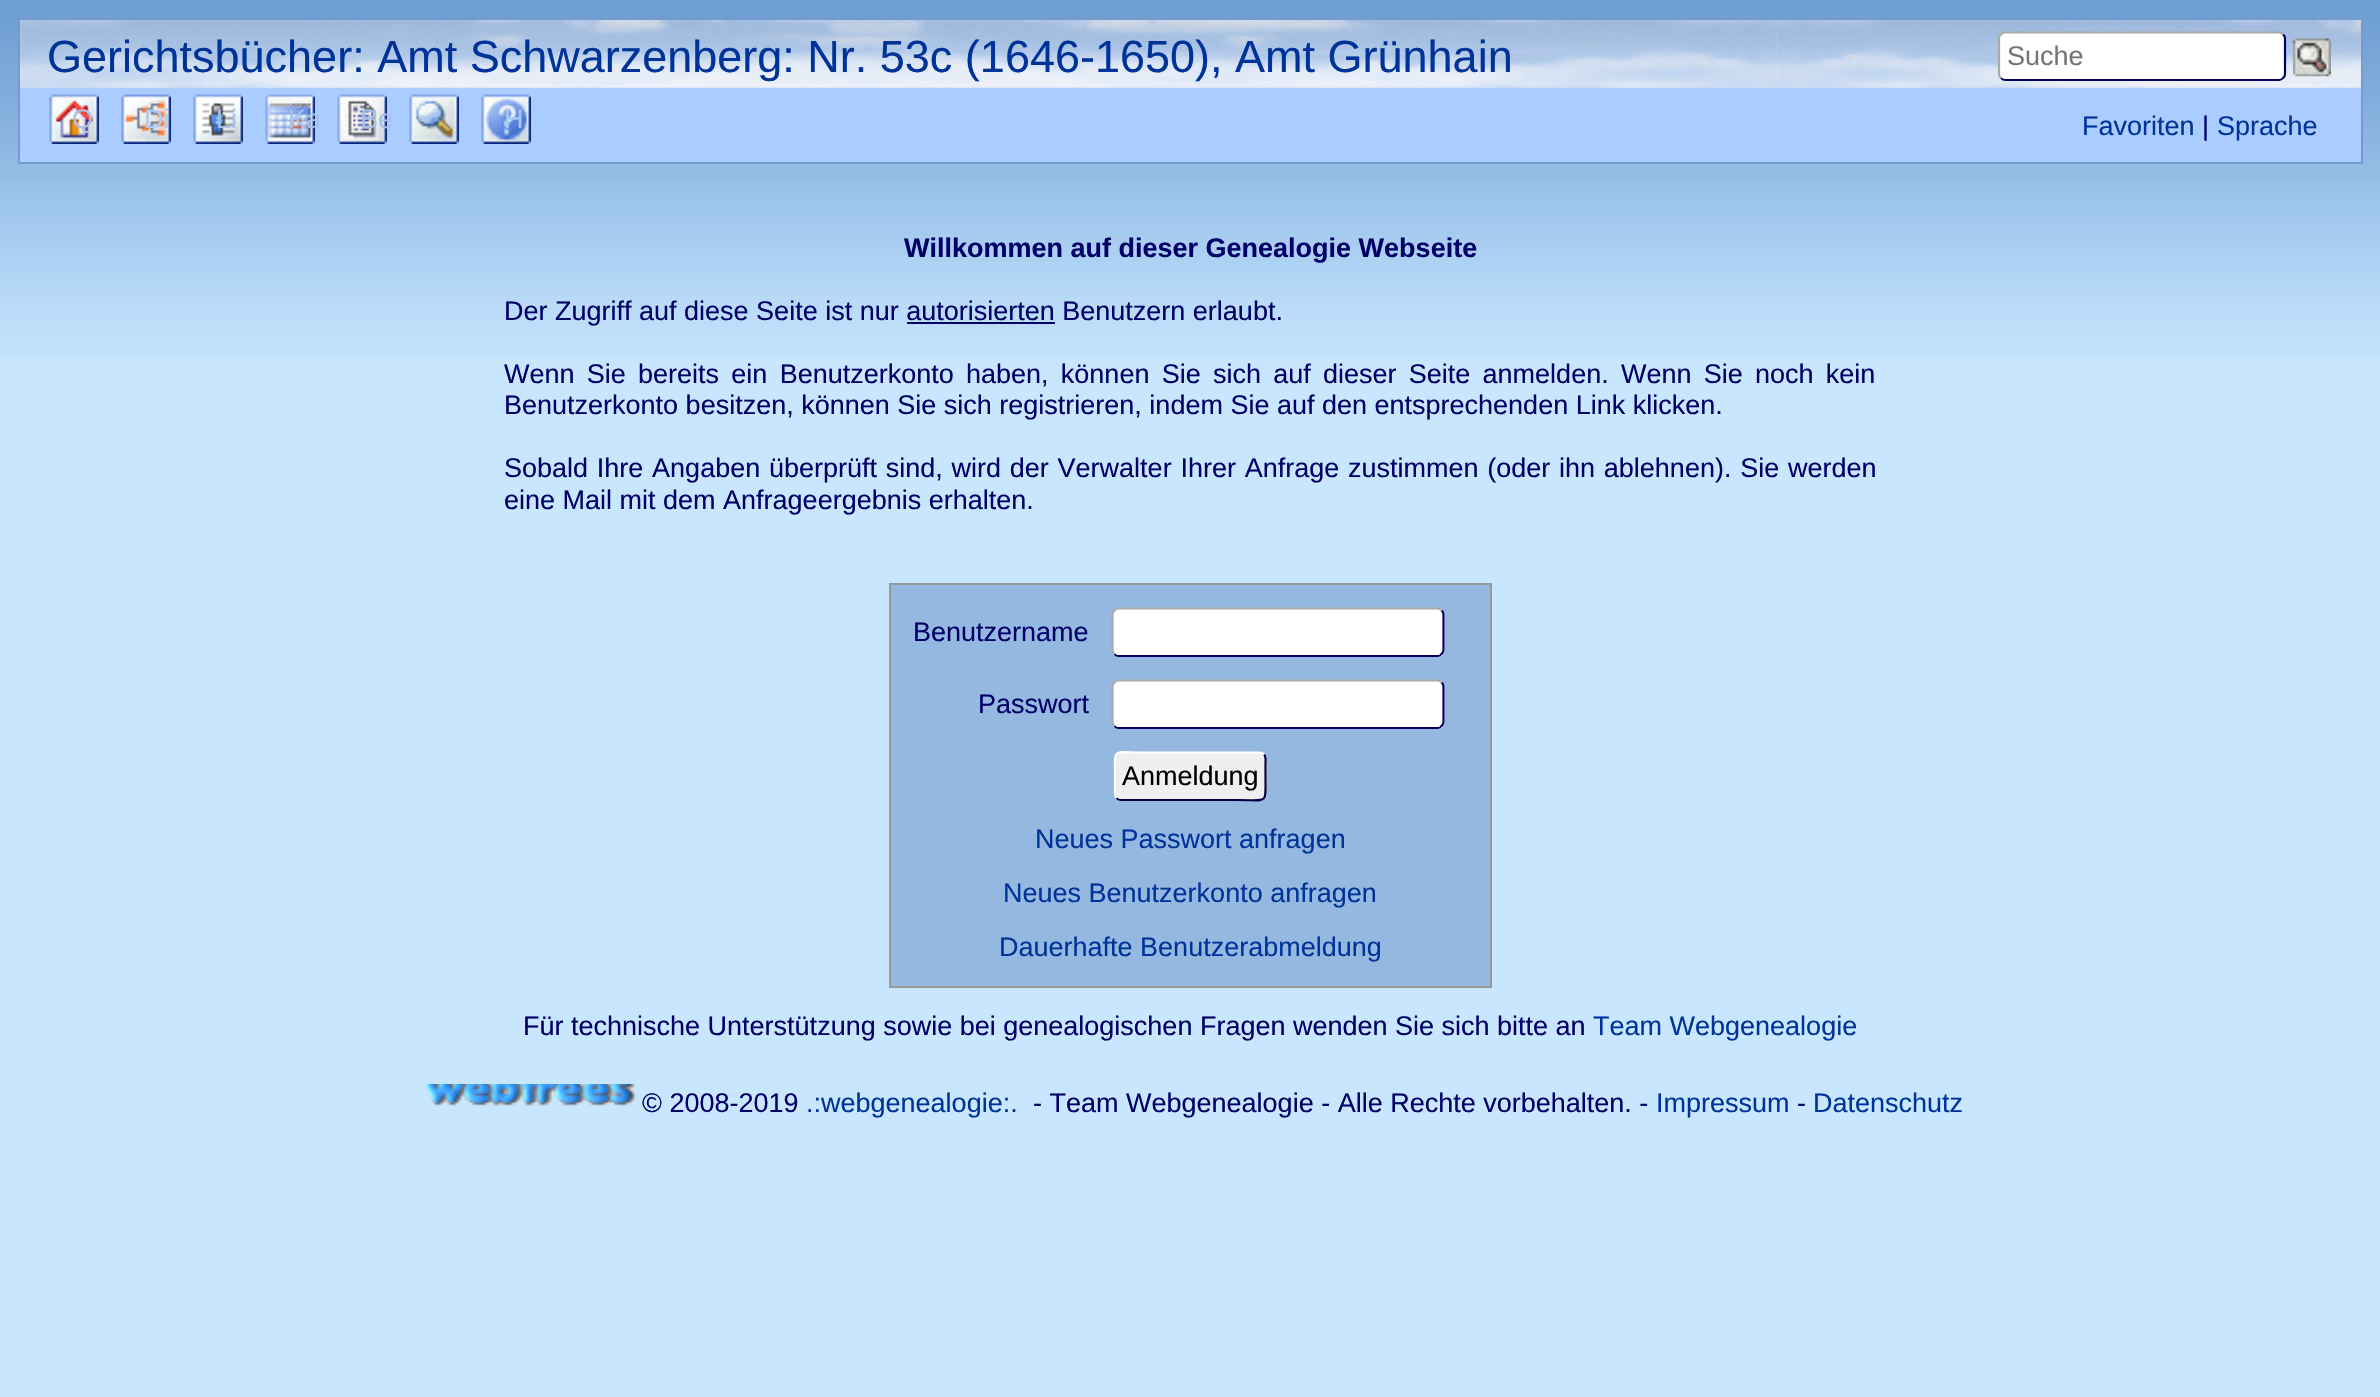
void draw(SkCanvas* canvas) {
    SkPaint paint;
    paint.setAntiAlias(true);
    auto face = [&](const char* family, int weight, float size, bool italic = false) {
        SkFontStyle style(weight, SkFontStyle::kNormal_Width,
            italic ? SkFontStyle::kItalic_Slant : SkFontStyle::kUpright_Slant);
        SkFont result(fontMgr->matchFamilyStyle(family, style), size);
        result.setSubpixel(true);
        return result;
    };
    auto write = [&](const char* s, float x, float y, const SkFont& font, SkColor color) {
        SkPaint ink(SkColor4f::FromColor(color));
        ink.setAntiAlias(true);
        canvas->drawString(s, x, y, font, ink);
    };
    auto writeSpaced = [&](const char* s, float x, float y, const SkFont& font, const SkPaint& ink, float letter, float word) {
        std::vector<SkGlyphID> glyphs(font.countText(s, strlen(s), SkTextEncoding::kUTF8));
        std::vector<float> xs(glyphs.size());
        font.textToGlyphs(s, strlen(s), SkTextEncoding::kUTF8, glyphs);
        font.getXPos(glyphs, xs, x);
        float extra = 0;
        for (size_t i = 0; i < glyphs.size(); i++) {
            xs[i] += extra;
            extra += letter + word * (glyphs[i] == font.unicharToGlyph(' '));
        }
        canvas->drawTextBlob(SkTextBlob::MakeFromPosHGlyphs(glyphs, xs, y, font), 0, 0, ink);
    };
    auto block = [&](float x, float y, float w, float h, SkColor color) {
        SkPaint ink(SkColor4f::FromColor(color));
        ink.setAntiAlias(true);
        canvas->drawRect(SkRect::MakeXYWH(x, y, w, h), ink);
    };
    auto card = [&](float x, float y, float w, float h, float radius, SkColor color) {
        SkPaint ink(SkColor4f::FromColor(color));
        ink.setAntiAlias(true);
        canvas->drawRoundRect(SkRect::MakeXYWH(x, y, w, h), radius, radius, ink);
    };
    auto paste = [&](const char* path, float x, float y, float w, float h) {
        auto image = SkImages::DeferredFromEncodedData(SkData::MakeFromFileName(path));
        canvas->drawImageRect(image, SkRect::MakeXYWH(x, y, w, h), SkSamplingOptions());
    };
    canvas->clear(SkColorSetRGB(200, 231, 255));
    paste("pic1.png", 0, 0, 2380, 357);
    block(20, 20, 2341, 142, SkColorSetRGB(170, 204, 255));
    paste("pic2.png", 20, 20, 2341, 68);
    paint.setStyle(SkPaint::kStroke_Style);
    paint.setStrokeWidth(2);
    paint.setColor(SkColorSetRGB(119, 153, 204));
    canvas->drawRect(SkRect::MakeXYWH(19, 19, 2343, 144), paint);
    auto kFont1 = face("Liberation Sans", 400, 45);
    write("Gerichtsbücher: Amt Schwarzenberg: Nr. 53c (1646-1650), Amt Grünhain", 47, 72, kFont1, SkColorSetRGB(0, 51, 153));
    card(1998, 32, 288, 49, 7, SK_ColorWHITE);
    paint.setStrokeWidth(2.2f);
    paint.setColor(SkColorSetRGB(0, 0, 102));
    canvas->drawPath(SkPathBuilder().moveTo(2283, 34.5f).cubicTo(2284.5f, 35.5f, 2285, 37, 2285, 38).lineTo(2285, 74).cubicTo(2285, 75.5f, 2284.5f, 77, 2283, 78).cubicTo(2282, 79.5f, 2280.5f, 80, 2279, 80).lineTo(2005, 80).cubicTo(2003.5f, 80, 2002, 79.5f, 2001, 78).detach(), paint);
    paint.setColor(SkColorSetRGB(170, 170, 170));
    canvas->drawPath(SkPathBuilder().moveTo(2001, 78).cubicTo(1999.5f, 77, 1999, 75.5f, 1999, 74).lineTo(1999, 38).cubicTo(1999, 37, 1999.5f, 35.5f, 2001, 34.5f).cubicTo(2002, 33, 2003.5f, 32.5f, 2005, 32.5f).lineTo(2279, 32.5f).cubicTo(2280.5f, 32.5f, 2282, 33, 2283, 34.5f).detach(), paint);
    auto kFont2 = face("Liberation Sans", 400, 27);
    write("Suche", 2007, 65, kFont2, SkColorSetRGB(117, 117, 117));
    paste("pic3.png", 2292, 38, 39, 39);
    paste("pic4.png", 49, 94, 50, 50);
    write("Q", 72, 128, kFont2, SkColorSetRGB(177, 190, 227));
    paste("pic5.png", 121, 94, 50, 50);
    write("Di", 144, 128, kFont2, SkColorSetRGB(178, 202, 242));
    paste("pic6.png", 193, 94, 50, 50);
    write("Li", 216, 128, kFont2, SkColorSetRGB(166, 193, 234));
    paste("pic7.png", 265, 94, 50, 50);
    write("Ka", 288, 128, kFont2, SkColorSetRGB(166, 194, 240));
    paste("pic8.png", 337, 94, 50, 50);
    write("Be", 360, 128, kFont2, SkColorSetRGB(166, 193, 234));
    paste("pic9.png", 409, 94, 50, 50);
    paste("pic10.png", 481, 94, 50, 50);
    write("H", 504, 128, kFont2, SkColorSetRGB(166, 199, 251));
    write("Favoriten", 2082, 135, kFont2, SkColorSetRGB(0, 51, 153));
    write("|", 2202, 135, kFont2, SkColorSetRGB(0, 0, 102));
    write("Sprache", 2217, 135, kFont2, SkColorSetRGB(0, 51, 153));
    auto kFont3 = face("Liberation Sans", 700, 27);
    write("Willkommen auf dieser Genealogie Webseite", 904, 257, kFont3, SkColorSetRGB(0, 0, 102));
    write("Der Zugriff auf diese Seite ist nur autorisierten Benutzern erlaubt.", 504, 320, kFont2, SkColorSetRGB(0, 0, 102));
    block(907, 322, 148, 2, SkColorSetRGB(0, 0, 102));
    paint.setStyle(SkPaint::kFill_Style);
    paint.setColor(SkColorSetRGB(0, 0, 102));
    writeSpaced("Wenn Sie bereits ein Benutzerkonto haben, können Sie sich auf dieser Seite anmelden. Wenn Sie noch kein", 504, 383, kFont2, paint, 0, 4.75f);
    write("Benutzerkonto besitzen, können Sie sich registrieren, indem Sie auf den entsprechenden Link klicken.", 504, 414, kFont2, SkColorSetRGB(0, 0, 102));
    writeSpaced("Sobald Ihre Angaben überprüft sind, wird der Verwalter Ihrer Anfrage zustimmen (oder ihn ablehnen). Sie werden", 504, 477, kFont2, paint, 0, 1.25f);
    write("eine Mail mit dem Anfrageergebnis erhalten.", 504, 509, kFont2, SkColorSetRGB(0, 0, 102));
    paint.setColor(SkColorSetRGB(149, 184, 224));
    canvas->drawRect(SkRect::MakeXYWH(890, 584, 601, 403), paint);
    paint.setStyle(SkPaint::kStroke_Style);
    paint.setStrokeWidth(2);
    paint.setColor(SkColorSetRGB(153, 153, 153));
    canvas->drawRect(SkRect::MakeXYWH(890, 584, 601, 403), paint);
    write("Benutzername", 913, 641, kFont2, SkColorSetRGB(0, 0, 102));
    card(1112, 608, 333, 49, 7, SK_ColorWHITE);
    paint.setStrokeWidth(2.2f);
    paint.setColor(SkColorSetRGB(0, 0, 102));
    canvas->drawPath(SkPathBuilder().moveTo(1441.5f, 610.5f).cubicTo(1443, 611.5f, 1443.5f, 613, 1443.5f, 614).lineTo(1443.5f, 650).cubicTo(1443.5f, 651.5f, 1443, 653, 1441.5f, 654).cubicTo(1440.5f, 655.5f, 1439, 656, 1438, 656).lineTo(1118, 656).cubicTo(1117, 656, 1115.5f, 655.5f, 1114.5f, 654).detach(), paint);
    paint.setColor(SkColorSetRGB(170, 170, 170));
    canvas->drawPath(SkPathBuilder().moveTo(1114.5f, 654).cubicTo(1113, 653, 1112.5f, 651.5f, 1112.5f, 650).lineTo(1112.5f, 614).cubicTo(1112.5f, 613, 1113, 611.5f, 1114.5f, 610.5f).cubicTo(1115.5f, 609, 1117, 608.5f, 1118, 608.5f).lineTo(1438, 608.5f).cubicTo(1439, 608.5f, 1440.5f, 609, 1441.5f, 610.5f).detach(), paint);
    write("Passwort", 978, 713, kFont2, SkColorSetRGB(0, 0, 102));
    card(1112, 680, 333, 49, 7, SK_ColorWHITE);
    paint.setColor(SkColorSetRGB(0, 0, 102));
    canvas->drawPath(SkPathBuilder().moveTo(1441.5f, 682.5f).cubicTo(1443, 683.5f, 1443.5f, 685, 1443.5f, 686).lineTo(1443.5f, 722).cubicTo(1443.5f, 723.5f, 1443, 725, 1441.5f, 726).cubicTo(1440.5f, 727.5f, 1439, 728, 1438, 728).lineTo(1118, 728).cubicTo(1117, 728, 1115.5f, 727.5f, 1114.5f, 726).detach(), paint);
    paint.setColor(SkColorSetRGB(170, 170, 170));
    canvas->drawPath(SkPathBuilder().moveTo(1114.5f, 726).cubicTo(1113, 725, 1112.5f, 723.5f, 1112.5f, 722).lineTo(1112.5f, 686).cubicTo(1112.5f, 685, 1113, 683.5f, 1114.5f, 682.5f).cubicTo(1115.5f, 681, 1117, 680.5f, 1118, 680.5f).lineTo(1438, 680.5f).cubicTo(1439, 680.5f, 1440.5f, 681, 1441.5f, 682.5f).detach(), paint);
    card(1114, 752, 153, 49, 7, SkColorSetRGB(239, 239, 239));
    paint.setColor(SkColorSetRGB(0, 0, 68));
    canvas->drawPath(SkPathBuilder().moveTo(1264, 754.5f).cubicTo(1266.5f, 757, 1265.5f, 761, 1265.5f, 764).lineTo(1265.5f, 776).cubicTo(1265.5f, 805.5f, 1269, 800, 1237, 800).lineTo(1120.5f, 800).cubicTo(1119, 800, 1117.5f, 799.5f, 1116.5f, 798).detach(), paint);
    paint.setColor(SK_ColorWHITE);
    canvas->drawPath(SkPathBuilder().moveTo(1116.5f, 798).cubicTo(1114, 795.5f, 1115, 791.5f, 1115, 788).lineTo(1115, 776).cubicTo(1115, 747, 1111.5f, 752.5f, 1144, 752.5f).lineTo(1260, 752.5f).cubicTo(1261.5f, 752.5f, 1263, 753, 1264, 754.5f).detach(), paint);
    write("Anmeldung", 1122, 785, kFont2, SK_ColorBLACK);
    write("Neues Passwort anfragen", 1035, 848, kFont2, SkColorSetRGB(0, 51, 153));
    write("Neues Benutzerkonto anfragen", 1003, 902, kFont2, SkColorSetRGB(0, 51, 153));
    write("Dauerhafte Benutzerabmeldung", 999, 956, kFont2, SkColorSetRGB(0, 51, 153));
    write("Für technische Unterstützung sowie bei genealogischen Fragen wenden Sie sich bitte an", 523, 1035, kFont2, SkColorSetRGB(0, 0, 102));
    write("Team Webgenealogie", 1593, 1035, kFont2, SkColorSetRGB(0, 51, 153));
    paste("pic11.png", 423, 1084, 213, 22);
    write("© 2008-2019", 642, 1112, kFont2, SkColorSetRGB(0, 0, 102));
    write(".:webgenealogie:.", 806, 1112, kFont2, SkColorSetRGB(0, 51, 153));
    write("- Team Webgenealogie - Alle Rechte vorbehalten. -", 1033, 1112, kFont2, SkColorSetRGB(0, 0, 102));
    write("Impressum", 1656, 1112, kFont2, SkColorSetRGB(0, 51, 153));
    write("-", 1797, 1112, kFont2, SkColorSetRGB(0, 0, 102));
    write("Datenschutz", 1813, 1112, kFont2, SkColorSetRGB(0, 51, 153));
}
